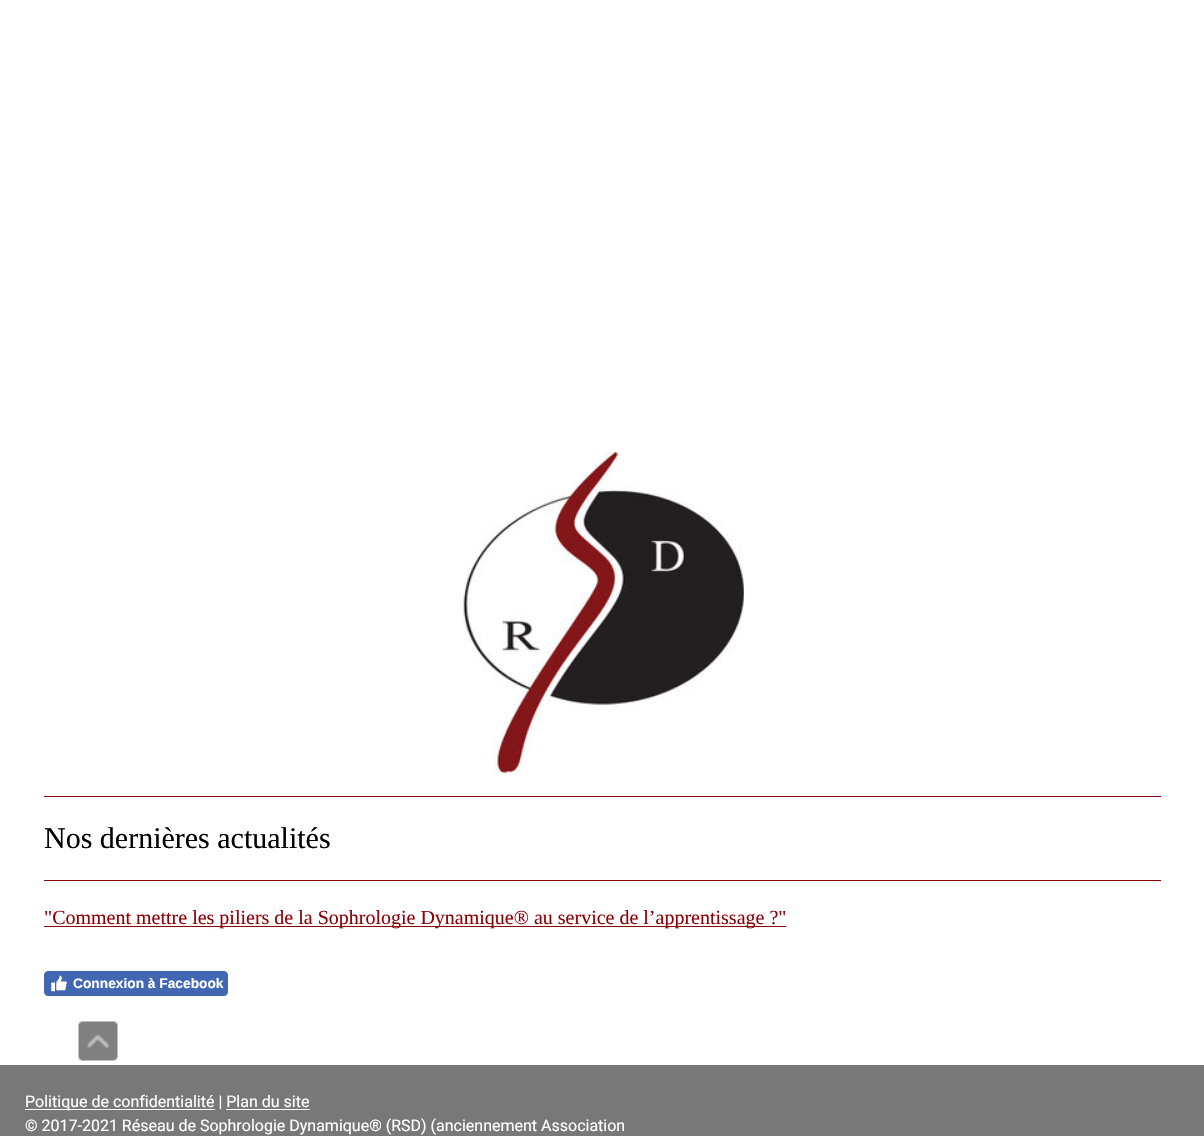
void draw(SkCanvas* canvas) {
    SkPaint paint;
    paint.setAntiAlias(true);
    auto face = [&](const char* family, int weight, float size, bool italic = false) {
        SkFontStyle style(weight, SkFontStyle::kNormal_Width,
            italic ? SkFontStyle::kItalic_Slant : SkFontStyle::kUpright_Slant);
        SkFont result(fontMgr->matchFamilyStyle(family, style), size);
        result.setSubpixel(true);
        return result;
    };
    auto write = [&](const char* s, float x, float y, const SkFont& font, SkColor color) {
        SkPaint ink(SkColor4f::FromColor(color));
        ink.setAntiAlias(true);
        canvas->drawString(s, x, y, font, ink);
    };
    auto block = [&](float x, float y, float w, float h, SkColor color) {
        SkPaint ink(SkColor4f::FromColor(color));
        ink.setAntiAlias(true);
        canvas->drawRect(SkRect::MakeXYWH(x, y, w, h), ink);
    };
    auto card = [&](float x, float y, float w, float h, float radius, SkColor color) {
        SkPaint ink(SkColor4f::FromColor(color));
        ink.setAntiAlias(true);
        canvas->drawRoundRect(SkRect::MakeXYWH(x, y, w, h), radius, radius, ink);
    };
    auto paste = [&](const char* path, float x, float y, float w, float h) {
        auto image = SkImages::DeferredFromEncodedData(SkData::MakeFromFileName(path));
        canvas->drawImageRect(image, SkRect::MakeXYWH(x, y, w, h), SkSamplingOptions());
    };
    canvas->clear(SK_ColorWHITE);
    paste("pic1.png", 463, 452, 281, 322);
    block(44, 796, 1117, 1, SkColorSetRGB(140, 2, 9));
    auto kFont1 = face("Liberation Serif", 400, 30);
    write("Nos dernières actualités", 44, 848, kFont1, SK_ColorBLACK);
    block(44, 880, 1117, 1, SkColorSetRGB(140, 2, 9));
    block(44, 926, 742, 1, SkColorSetRGB(140, 2, 9));
    auto kFont2 = face("Liberation Serif", 400, 20);
    write("\"Comment mettre les piliers de la Sophrologie Dynamique® au service de l’apprentissage ?\"", 44, 924, kFont2, SkColorSetRGB(140, 2, 9));
    paint.setColor(SkColorSetRGB(66, 103, 178));
    canvas->drawRoundRect(SkRect::MakeXYWH(44.5f, 971.5f, 183, 24), 3.5f, 3.5f, paint);
    paint.setStyle(SkPaint::kStroke_Style);
    paint.setStrokeWidth(1);
    canvas->drawRoundRect(SkRect::MakeXYWH(44.5f, 971.5f, 183, 24), 3.5f, 3.5f, paint);
    paste("pic2.png", 51, 975, 16, 17);
    auto kFont3 = face("Liberation Sans", 700, 13.75f);
    write("Connexion à Facebook", 73, 988, kFont3, SK_ColorWHITE);
    block(0, 1065, 1204, 71, SkColorSetRGB(120, 120, 120));
    block(25, 1109, 190, 1, SK_ColorWHITE);
    auto kFont4 = face("Roboto", 400, 16);
    write("Politique de confidentialité | Plan du site", 25, 1107, kFont4, SK_ColorWHITE);
    block(226, 1109, 84, 1, SK_ColorWHITE);
    write("© 2017-2021 Réseau de Sophrologie Dynamique® (RSD) (anciennement Association", 25, 1131, kFont4, SK_ColorWHITE);
    card(78, 1021, 40, 40, 5, SkColorSetRGB(128, 128, 128));
    paint.setColor(SkColorSetARGB(128, 255, 255, 255));
    canvas->drawRoundRect(SkRect::MakeXYWH(78.5f, 1021.5f, 39, 39), 4.5f, 4.5f, paint);
    paste("pic3.png", 87, 1034, 22, 14);
}
